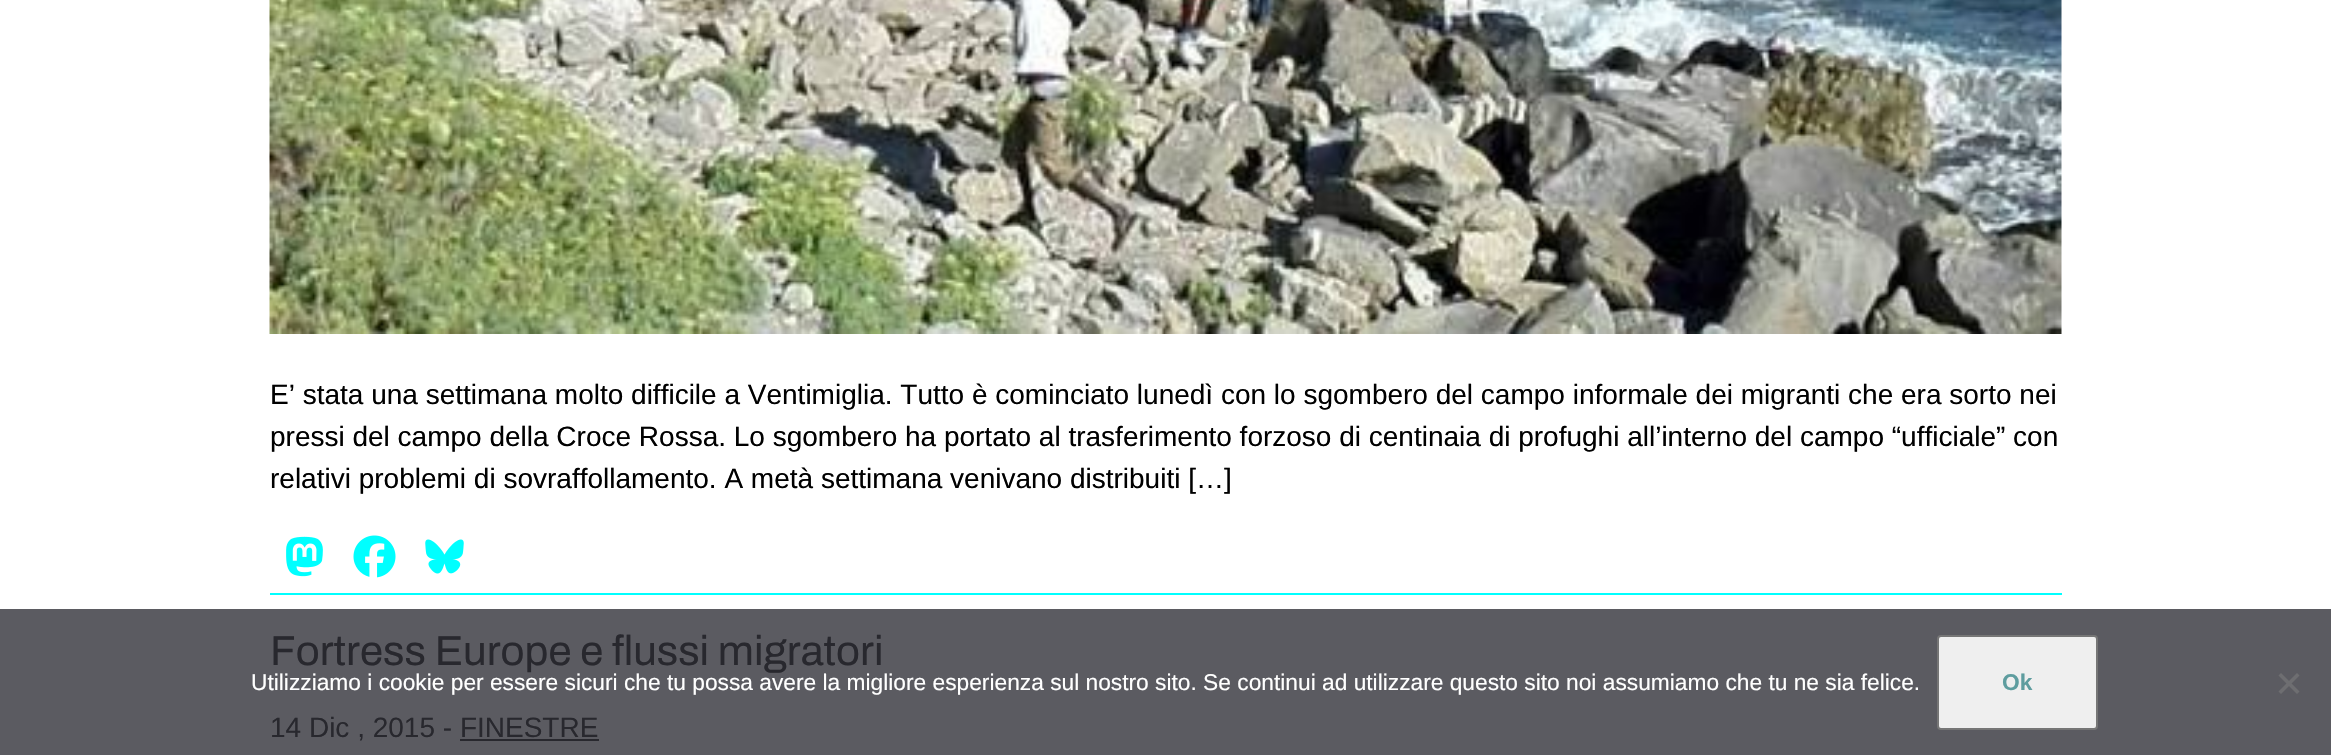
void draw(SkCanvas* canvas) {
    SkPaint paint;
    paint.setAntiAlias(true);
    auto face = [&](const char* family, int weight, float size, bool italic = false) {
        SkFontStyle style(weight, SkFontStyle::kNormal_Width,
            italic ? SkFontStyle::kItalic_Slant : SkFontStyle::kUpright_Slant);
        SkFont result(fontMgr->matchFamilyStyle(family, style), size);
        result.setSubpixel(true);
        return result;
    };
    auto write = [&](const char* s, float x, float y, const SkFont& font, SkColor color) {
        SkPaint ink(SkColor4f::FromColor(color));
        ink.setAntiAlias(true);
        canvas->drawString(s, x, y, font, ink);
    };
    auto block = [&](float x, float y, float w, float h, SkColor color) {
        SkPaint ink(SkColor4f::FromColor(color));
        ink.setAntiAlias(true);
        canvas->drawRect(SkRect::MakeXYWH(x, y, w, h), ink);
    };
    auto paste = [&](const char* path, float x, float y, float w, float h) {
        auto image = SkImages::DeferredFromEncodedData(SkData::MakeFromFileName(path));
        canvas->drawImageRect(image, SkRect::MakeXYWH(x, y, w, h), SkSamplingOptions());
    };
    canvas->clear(SK_ColorWHITE);
    block(0, 609, 2331, 146, SkColorSetRGB(91, 91, 97));
    block(270, 593, 1792, 2, SkColorSetRGB(0, 255, 255));
    paste("pic1.png", 269, 0, 1793, 334);
    auto kFont1 = face("Liberation Sans", 400, 28);
    write("E’ stata una settimana molto difficile a Ventimiglia. Tutto è cominciato lunedì con lo sgombero del campo informale dei migranti che era sorto nei", 270, 404, kFont1, SK_ColorBLACK);
    write("pressi del campo della Croce Rossa. Lo sgombero ha portato al trasferimento forzoso di centinaia di profughi all’interno del campo “ufficiale” con", 270, 446, kFont1, SK_ColorBLACK);
    write("relativi problemi di sovraffollamento. A metà settimana venivano distribuiti […]", 270, 488, kFont1, SK_ColorBLACK);
    paste("pic2.png", 286, 536, 37, 41);
    paste("pic3.png", 353, 535, 43, 43);
    paste("pic4.png", 425, 539, 39, 35);
    auto kFont2 = face("Archivo", 400, 42);
    write("Fortress Europe e flussi migratori", 270, 665, kFont2, SkColorSetRGB(40, 40, 46));
    write("14 Dic , 2015 - FINESTRE", 270, 737, kFont1, SkColorSetRGB(40, 40, 46));
    block(460, 739, 139, 2, SkColorSetRGB(40, 40, 46));
    auto kFont3 = face("Liberation Sans", 400, 22.75f);
    write("Utilizziamo i cookie per essere sicuri che tu possa avere la migliore esperienza sul nostro sito. Se continui ad utilizzare questo sito noi assumiamo che tu ne sia felice.", 251, 690, kFont3, SK_ColorWHITE);
    paint.setColor(SkColorSetRGB(239, 239, 239));
    canvas->drawRoundRect(SkRect::MakeXYWH(1938, 636, 159, 93), 3, 3, paint);
    paint.setStyle(SkPaint::kStroke_Style);
    paint.setStrokeWidth(2);
    paint.setColor(SkColorSetRGB(118, 118, 118));
    canvas->drawRoundRect(SkRect::MakeXYWH(1938, 636, 159, 93), 3, 3, paint);
    auto kFont4 = face("Liberation Sans", 700, 22.75f);
    write("Ok", 2002, 690, kFont4, SkColorSetRGB(94, 157, 159));
    paint.setStyle(SkPaint::kFill_Style);
    paint.setColor(SkColorSetRGB(110, 110, 113));
    canvas->drawPath(SkPathBuilder().moveTo(2297, 673).lineTo(2299.5f, 675.5f).lineTo(2281, 694).lineTo(2278.5f, 691.5f).close().detach(), paint);
    canvas->drawPath(SkPathBuilder().moveTo(2278.5f, 675.5f).lineTo(2281, 673).lineTo(2299.5f, 691.5f).lineTo(2297, 694).close().detach(), paint);
}
